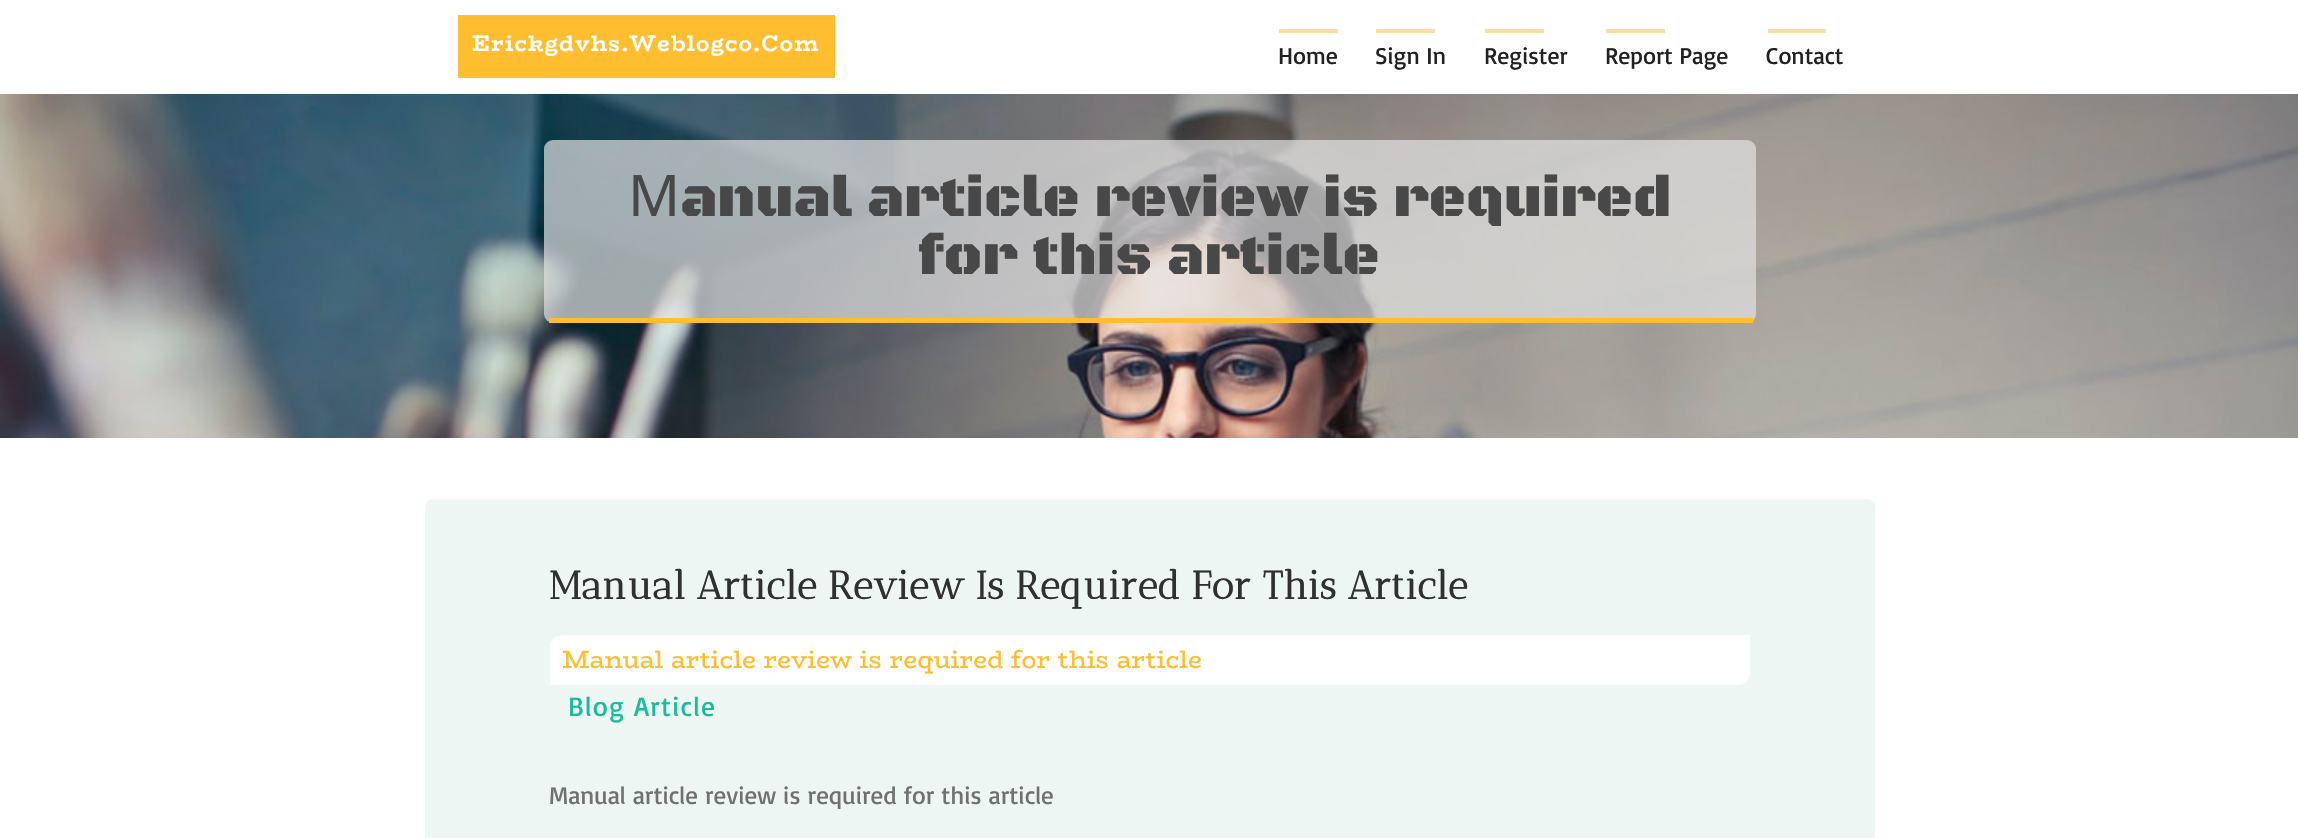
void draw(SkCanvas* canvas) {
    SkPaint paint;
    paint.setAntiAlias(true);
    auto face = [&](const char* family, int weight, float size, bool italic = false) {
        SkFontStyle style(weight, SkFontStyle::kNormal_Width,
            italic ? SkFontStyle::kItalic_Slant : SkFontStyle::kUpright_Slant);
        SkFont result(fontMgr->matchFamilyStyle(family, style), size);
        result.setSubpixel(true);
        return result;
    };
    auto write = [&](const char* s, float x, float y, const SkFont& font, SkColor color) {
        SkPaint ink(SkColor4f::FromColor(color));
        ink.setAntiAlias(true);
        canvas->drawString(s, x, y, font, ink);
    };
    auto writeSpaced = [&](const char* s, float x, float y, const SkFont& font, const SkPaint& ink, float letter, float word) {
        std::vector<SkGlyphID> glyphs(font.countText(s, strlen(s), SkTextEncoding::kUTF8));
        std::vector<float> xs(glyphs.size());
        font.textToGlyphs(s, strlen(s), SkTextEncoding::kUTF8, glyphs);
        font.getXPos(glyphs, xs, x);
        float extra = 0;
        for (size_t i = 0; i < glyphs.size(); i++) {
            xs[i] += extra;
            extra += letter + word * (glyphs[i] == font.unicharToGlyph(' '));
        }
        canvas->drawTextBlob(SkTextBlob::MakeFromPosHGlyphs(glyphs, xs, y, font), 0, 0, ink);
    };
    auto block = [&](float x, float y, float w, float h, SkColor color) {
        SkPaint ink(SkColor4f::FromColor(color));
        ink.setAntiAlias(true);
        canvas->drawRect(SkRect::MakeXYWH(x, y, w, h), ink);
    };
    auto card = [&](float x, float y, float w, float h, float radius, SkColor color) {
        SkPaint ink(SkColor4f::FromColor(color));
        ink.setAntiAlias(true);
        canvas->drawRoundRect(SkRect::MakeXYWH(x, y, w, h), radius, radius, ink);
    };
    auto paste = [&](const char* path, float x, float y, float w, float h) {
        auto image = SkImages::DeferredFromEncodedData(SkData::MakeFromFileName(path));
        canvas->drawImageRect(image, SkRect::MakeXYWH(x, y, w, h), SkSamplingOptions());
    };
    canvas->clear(SK_ColorWHITE);
    block(458, 15, 377, 63, SkColorSetRGB(255, 190, 48));
    auto kFont1 = face("BioRhyme", 700, 22.5f);
    paint.setColor(SK_ColorWHITE);
    writeSpaced("Erickgdvhs.Weblogco.Com", 472, 51, kFont1, paint, 1.25f, 0);
    block(1279, 29, 59, 4, SkColorSetRGB(255, 219, 164));
    auto kFont2 = face("Basic", 400, 23.75f);
    write("Home", 1278, 64, kFont2, SkColorSetRGB(33, 33, 33));
    block(1376, 29, 59, 4, SkColorSetRGB(255, 219, 164));
    write("Sign In", 1375, 64, kFont2, SkColorSetRGB(33, 33, 33));
    block(1485, 29, 59, 4, SkColorSetRGB(255, 219, 164));
    write("Register", 1484, 64, kFont2, SkColorSetRGB(33, 33, 33));
    block(1606, 29, 59, 4, SkColorSetRGB(255, 219, 164));
    write("Report Page", 1605, 64, kFont2, SkColorSetRGB(33, 33, 33));
    block(1768, 29, 58, 4, SkColorSetRGB(255, 219, 164));
    write("Contact", 1766, 64, kFont2, SkColorSetRGB(33, 33, 33));
    paste("pic1.png", 0, 94, 2298, 344);
    card(544, 140, 1212, 183, 9, SkColorSetARGB(179, 225, 225, 225));
    block(549, 318, 1204, 5, SkColorSetRGB(255, 190, 48));
    auto kFont3 = face("Noto Sans", 400, 57.5f);
    write("M", 628, 216, kFont3, SkColorSetRGB(72, 72, 72));
    auto kFont4 = face("Black Ops One", 900, 57.5f);
    write("anual article review is required", 680, 216, kFont4, SkColorSetRGB(72, 72, 72));
    write("for this article", 918, 274, kFont4, SkColorSetRGB(72, 72, 72));
    card(425, 499, 1450, 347, 8, SkColorSetRGB(237, 246, 243));
    auto kFont5 = face("Antic Didone", 700, 39);
    write("Manual Article Review Is Required For This Article", 549, 599, kFont5, SkColorSetRGB(48, 48, 48));
    canvas->drawPath(SkPathBuilder().moveTo(561, 635).lineTo(1750, 635).lineTo(1750, 674).cubicTo(1750, 680, 1745, 685, 1739, 685).lineTo(550, 685).lineTo(550, 646).cubicTo(550, 640, 555, 635, 561, 635).close().detach(), paint);
    auto kFont6 = face("BioRhyme", 400, 25);
    write("Manual article review is required for this article", 562, 668, kFont6, SkColorSetRGB(255, 190, 48));
    auto kFont7 = face("Basic", 400, 27.5f);
    paint.setColor(SkColorSetRGB(26, 188, 156));
    writeSpaced("Blog Article", 568, 716, kFont7, paint, 1.25f, 0);
    auto kFont8 = face("Basic", 400, 25);
    write("Manual article review is required for this article", 549, 804, kFont8, SkColorSetRGB(112, 112, 112));
}
